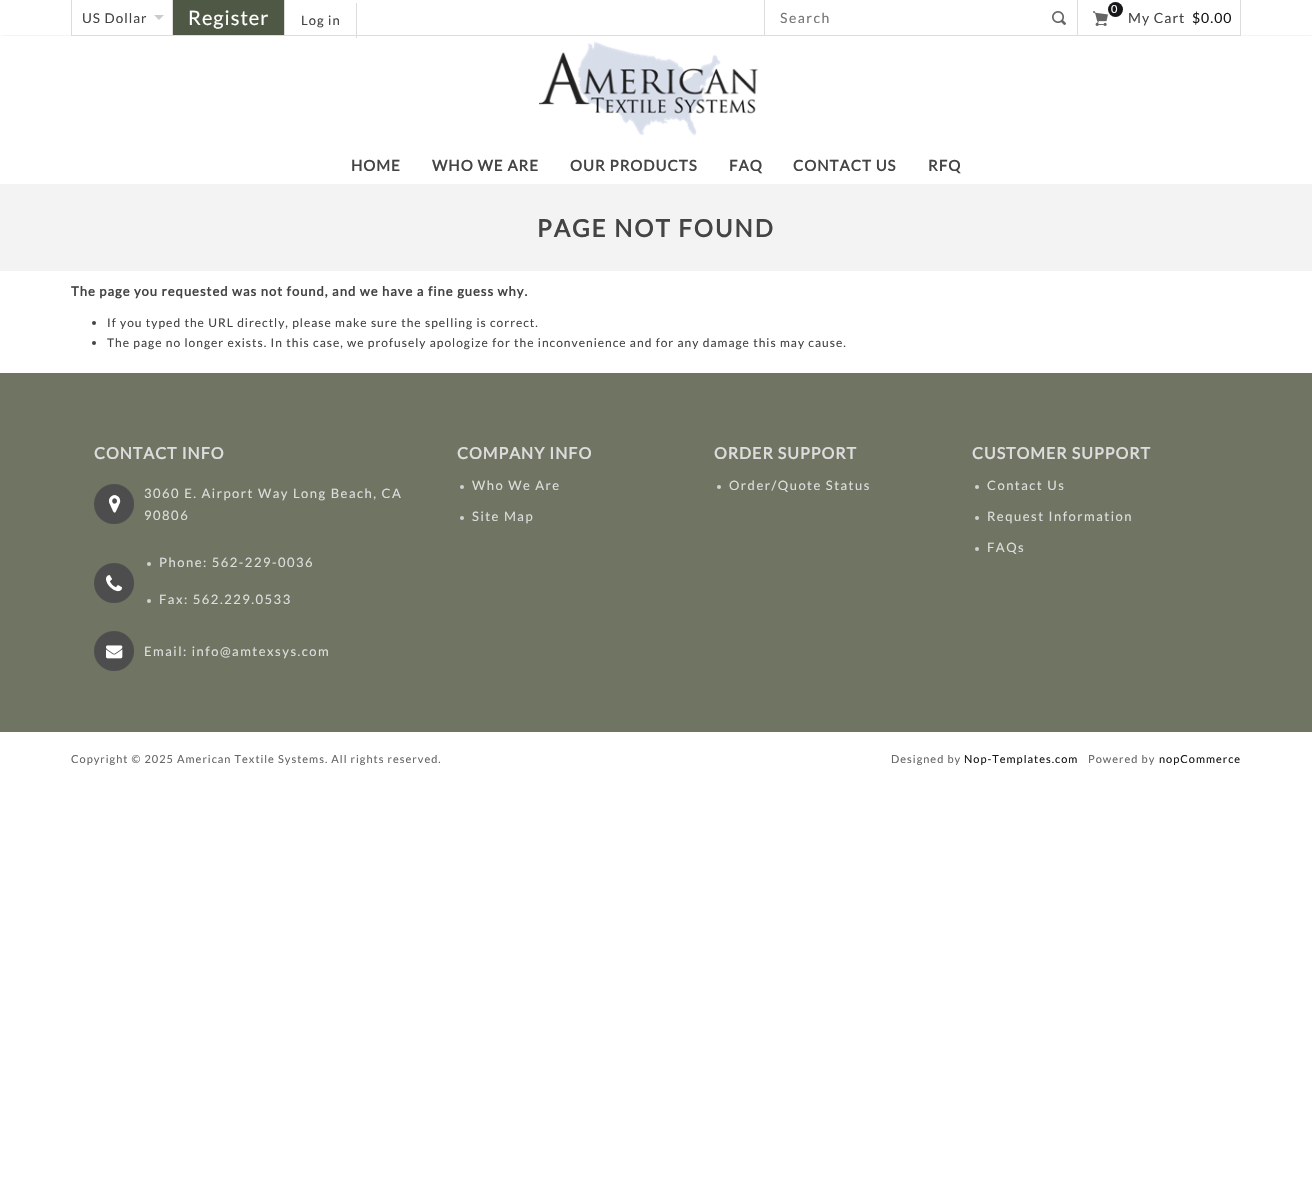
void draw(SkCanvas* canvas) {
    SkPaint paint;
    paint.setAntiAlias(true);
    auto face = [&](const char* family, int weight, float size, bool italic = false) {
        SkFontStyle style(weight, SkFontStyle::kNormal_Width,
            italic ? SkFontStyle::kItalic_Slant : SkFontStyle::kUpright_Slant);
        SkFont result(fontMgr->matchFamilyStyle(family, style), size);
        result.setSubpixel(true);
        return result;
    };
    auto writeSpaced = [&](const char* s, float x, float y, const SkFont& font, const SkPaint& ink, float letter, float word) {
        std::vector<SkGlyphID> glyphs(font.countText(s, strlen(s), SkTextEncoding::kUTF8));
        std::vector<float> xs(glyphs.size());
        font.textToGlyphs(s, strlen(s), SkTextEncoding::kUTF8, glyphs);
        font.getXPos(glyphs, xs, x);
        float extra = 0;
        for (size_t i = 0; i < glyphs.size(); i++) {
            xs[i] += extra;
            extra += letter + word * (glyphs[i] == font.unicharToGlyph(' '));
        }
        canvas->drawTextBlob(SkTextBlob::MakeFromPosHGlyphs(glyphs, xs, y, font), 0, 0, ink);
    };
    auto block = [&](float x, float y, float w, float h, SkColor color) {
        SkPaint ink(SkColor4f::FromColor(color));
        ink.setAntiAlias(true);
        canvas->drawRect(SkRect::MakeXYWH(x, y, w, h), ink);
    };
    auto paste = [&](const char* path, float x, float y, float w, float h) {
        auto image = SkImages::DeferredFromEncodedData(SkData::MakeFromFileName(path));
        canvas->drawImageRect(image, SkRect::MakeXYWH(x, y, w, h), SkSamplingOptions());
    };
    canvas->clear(SK_ColorWHITE);
    canvas->save();
    canvas->clipRect(SkRect::MakeXYWH(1, 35, 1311, 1));
    paint.setColor(SkColorSetARGB(128, 0, 0, 0));
    paint.setMaskFilter(SkMaskFilter::MakeBlur(kNormal_SkBlurStyle, 2.5f));
    canvas->drawRect(SkRect::MakeXYWH(1, 39, 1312, 148), paint);
    paint.setMaskFilter(nullptr);
    canvas->restore();
    block(1240, 0, 1, 36, SkColorSetRGB(221, 221, 221));
    block(71, 35, 1170, 1, SkColorSetRGB(221, 221, 221));
    block(71, 0, 1, 36, SkColorSetRGB(221, 221, 221));
    block(172, 0, 1, 35, SkColorSetRGB(221, 221, 221));
    block(72, 34, 100, 1, SK_ColorWHITE);
    paste("pic1.png", 154, 15, 10, 5);
    auto kFont1 = face("Lato", 400, 13.5f);
    paint.setColor(SkColorSetRGB(68, 68, 68));
    writeSpaced("US Dollar", 82, 23, kFont1, paint, 1, 0);
    block(284, 0, 1, 35, SkColorSetRGB(221, 221, 221));
    block(173, 0, 111, 35, SkColorSetRGB(79, 88, 69));
    auto kFont2 = face("Lato", 400, 20);
    paint.setColor(SK_ColorWHITE);
    writeSpaced("Register", 188, 25, kFont2, paint, 1, 0);
    block(356, 3, 1, 35, SkColorSetRGB(221, 221, 221));
    auto kFont3 = face("Lato", 400, 13);
    paint.setColor(SkColorSetRGB(68, 68, 68));
    writeSpaced("Log in", 301, 25, kFont3, paint, 1, 0);
    block(1077, 0, 1, 35, SkColorSetRGB(221, 221, 221));
    block(764, 0, 1, 35, SkColorSetRGB(221, 221, 221));
    auto kFont4 = face("Lato", 400, 14);
    paint.setColor(SkColorSetRGB(117, 117, 117));
    writeSpaced("Search", 780, 23, kFont4, paint, 1.5f, 0);
    paste("pic2.png", 1052, 11, 14, 14);
    paste("pic3.png", 1093, 11, 15, 15);
    paint.setColor(SkColorSetRGB(23, 23, 26));
    canvas->drawCircle(1115.5f, 9.5f, 7.5f, paint);
    auto kFont5 = face("Lato", 400, 11);
    paint.setColor(SK_ColorWHITE);
    writeSpaced("0", 1111, 13, kFont5, paint, 1, 0);
    paint.setColor(SkColorSetRGB(68, 68, 68));
    writeSpaced("My Cart", 1128, 23, kFont4, paint, 1, 0);
    paint.setColor(SkColorSetRGB(23, 23, 26));
    writeSpaced("$0.00", 1192, 23, kFont4, paint, 1, 0);
    paste("pic4.png", 539, 41, 234, 97);
    auto kFont6 = face("Lato", 700, 15);
    paint.setColor(SkColorSetRGB(68, 68, 68));
    writeSpaced("HOME", 351, 171, kFont6, paint, 1, 0);
    writeSpaced("WHO WE ARE", 432, 171, kFont6, paint, 1, 0);
    writeSpaced("OUR PRODUCTS", 570, 171, kFont6, paint, 1, 0);
    writeSpaced("FAQ", 729, 171, kFont6, paint, 1, 0);
    writeSpaced("CONTACT US", 793, 171, kFont6, paint, 1, 0);
    writeSpaced("RFQ", 928, 171, kFont6, paint, 1, 0);
    block(0, 184, 1312, 87, SkColorSetRGB(243, 243, 243));
    auto kFont7 = face("Lato", 700, 24);
    writeSpaced("PAGE NOT FOUND", 537, 237, kFont7, paint, 2, 0);
    auto kFont8 = face("Lato", 700, 13);
    writeSpaced("The page you requested was not found, and we have a fine guess why.", 71, 296, kFont8, paint, 1, 0);
    canvas->drawCircle(94, 323, 2, paint);
    auto kFont9 = face("Lato", 400, 12);
    writeSpaced("If you typed the URL directly, please make sure the spelling is correct.", 107, 327, kFont9, paint, 1, 0);
    canvas->drawCircle(94, 343, 2, paint);
    writeSpaced("The page no longer exists. In this case, we profusely apologize for the inconvenience and for any damage this may cause.", 107, 347, kFont9, paint, 1, 0);
    block(0, 373, 1312, 359, SkColorSetRGB(111, 117, 98));
    auto kFont10 = face("Lato", 700, 16);
    paint.setColor(SkColorSetRGB(221, 221, 221));
    writeSpaced("CONTACT INFO", 94, 459, kFont10, paint, 1, 0);
    paste("pic5.png", 94, 484, 40, 40);
    writeSpaced("3060 E. Airport Way Long Beach, CA", 144, 498, kFont3, paint, 1.5f, 0);
    writeSpaced("90806", 144, 520, kFont3, paint, 1.5f, 0);
    paste("pic6.png", 94, 563, 40, 40);
    paint.setColor(SkColorSetRGB(209, 209, 209));
    canvas->drawCircle(149, 564, 2, paint);
    paint.setColor(SkColorSetRGB(221, 221, 221));
    writeSpaced("Phone: 562-229-0036", 159, 567, kFont3, paint, 1.5f, 0);
    paint.setColor(SkColorSetRGB(209, 209, 209));
    canvas->drawCircle(149, 601, 2, paint);
    paint.setColor(SkColorSetRGB(221, 221, 221));
    writeSpaced("Fax: 562.229.0533", 159, 604, kFont3, paint, 1.5f, 0);
    paste("pic7.png", 94, 631, 40, 40);
    writeSpaced("Email: info@amtexsys.com", 144, 656, kFont3, paint, 1.5f, 0);
    writeSpaced("COMPANY INFO", 457, 459, kFont10, paint, 1, 0);
    paint.setColor(SkColorSetRGB(209, 209, 209));
    canvas->drawCircle(462, 487, 2, paint);
    paint.setColor(SkColorSetRGB(221, 221, 221));
    writeSpaced("Who We Are", 472, 490, kFont3, paint, 1.5f, 0);
    paint.setColor(SkColorSetRGB(209, 209, 209));
    canvas->drawCircle(462, 518, 2, paint);
    paint.setColor(SkColorSetRGB(221, 221, 221));
    writeSpaced("Site Map", 472, 521, kFont3, paint, 1.5f, 0);
    writeSpaced("ORDER SUPPORT", 714, 459, kFont10, paint, 1, 0);
    paint.setColor(SkColorSetRGB(209, 209, 209));
    canvas->drawCircle(719, 487, 2, paint);
    paint.setColor(SkColorSetRGB(221, 221, 221));
    writeSpaced("Order/Quote Status", 729, 490, kFont3, paint, 1.5f, 0);
    writeSpaced("CUSTOMER SUPPORT", 972, 459, kFont10, paint, 1, 0);
    paint.setColor(SkColorSetRGB(209, 209, 209));
    canvas->drawCircle(977, 487, 2, paint);
    paint.setColor(SkColorSetRGB(221, 221, 221));
    writeSpaced("Contact Us", 987, 490, kFont3, paint, 1.5f, 0);
    paint.setColor(SkColorSetRGB(209, 209, 209));
    canvas->drawCircle(977, 518, 2, paint);
    paint.setColor(SkColorSetRGB(221, 221, 221));
    writeSpaced("Request Information", 987, 521, kFont3, paint, 1.5f, 0);
    paint.setColor(SkColorSetRGB(209, 209, 209));
    canvas->drawCircle(977, 549, 2, paint);
    paint.setColor(SkColorSetRGB(221, 221, 221));
    writeSpaced("FAQs", 987, 552, kFont3, paint, 1.5f, 0);
    paint.setColor(SkColorSetRGB(102, 102, 102));
    writeSpaced("Copyright © 2025 American Textile Systems. All rights reserved.", 71, 763, kFont5, paint, 1, 0);
    writeSpaced("Designed by", 891, 763, kFont5, paint, 1, 0);
    paint.setColor(SkColorSetRGB(23, 23, 26));
    writeSpaced("Nop-Templates.com", 964, 763, kFont5, paint, 1, 0);
    paint.setColor(SkColorSetRGB(102, 102, 102));
    writeSpaced("Powered by", 1088, 763, kFont5, paint, 1, 0);
    paint.setColor(SkColorSetRGB(23, 23, 26));
    writeSpaced("nopCommerce", 1159, 763, kFont5, paint, 1, 0);
}
